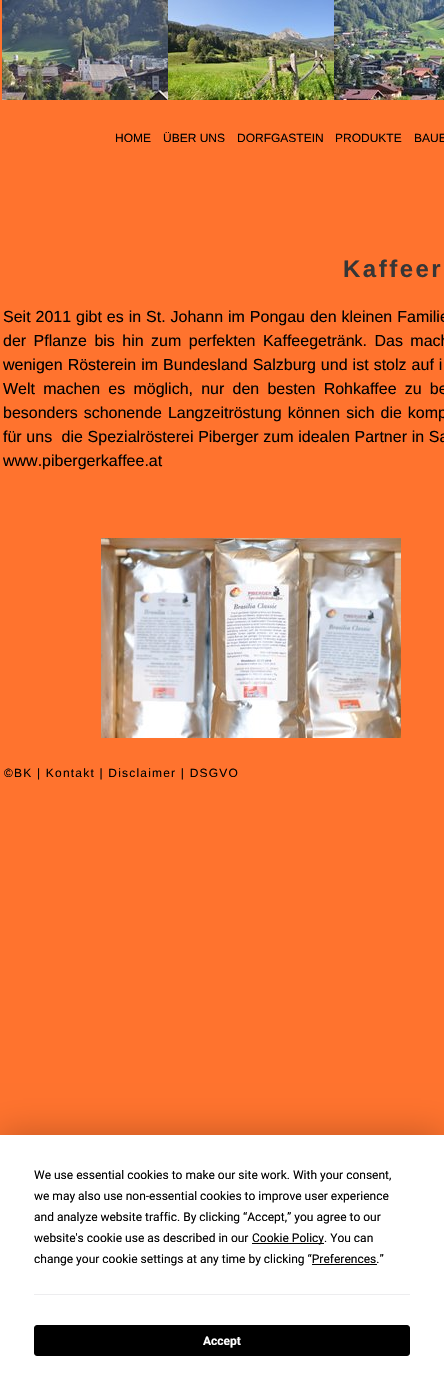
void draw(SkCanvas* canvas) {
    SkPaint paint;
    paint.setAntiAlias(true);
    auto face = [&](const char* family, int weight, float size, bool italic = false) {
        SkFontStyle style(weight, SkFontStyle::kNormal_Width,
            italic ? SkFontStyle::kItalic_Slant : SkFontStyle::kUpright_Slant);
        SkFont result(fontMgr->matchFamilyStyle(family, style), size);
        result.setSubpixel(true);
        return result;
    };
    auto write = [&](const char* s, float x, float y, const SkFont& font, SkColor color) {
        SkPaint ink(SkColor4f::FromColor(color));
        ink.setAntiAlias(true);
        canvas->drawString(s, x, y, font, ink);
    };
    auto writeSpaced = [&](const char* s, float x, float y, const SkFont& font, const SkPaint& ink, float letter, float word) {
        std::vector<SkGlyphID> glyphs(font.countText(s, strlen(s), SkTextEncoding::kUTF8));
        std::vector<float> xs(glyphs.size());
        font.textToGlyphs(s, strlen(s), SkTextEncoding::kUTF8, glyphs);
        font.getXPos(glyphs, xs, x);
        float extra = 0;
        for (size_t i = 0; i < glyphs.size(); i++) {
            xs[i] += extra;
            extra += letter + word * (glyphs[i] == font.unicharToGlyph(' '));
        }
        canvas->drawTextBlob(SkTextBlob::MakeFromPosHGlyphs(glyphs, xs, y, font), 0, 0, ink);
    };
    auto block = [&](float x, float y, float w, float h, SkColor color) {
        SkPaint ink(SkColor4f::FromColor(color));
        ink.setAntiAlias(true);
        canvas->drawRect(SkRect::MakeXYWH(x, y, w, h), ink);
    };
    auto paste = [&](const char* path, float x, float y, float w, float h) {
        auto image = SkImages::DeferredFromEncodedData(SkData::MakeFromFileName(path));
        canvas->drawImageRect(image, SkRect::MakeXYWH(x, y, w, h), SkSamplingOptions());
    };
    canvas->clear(SkColorSetRGB(255, 115, 46));
    paste("pic1.png", 2, 0, 166, 100);
    paste("pic2.png", 168, 0, 166, 100);
    paste("pic3.png", 334, 0, 110, 100);
    auto kFont1 = face("Liberation Sans", 400, 12);
    write("HOME", 115, 142, kFont1, SK_ColorBLACK);
    write("ÜBER UNS", 163, 142, kFont1, SK_ColorBLACK);
    write("DORFGASTEIN", 237, 142, kFont1, SK_ColorBLACK);
    write("PRODUKTE", 335, 142, kFont1, SK_ColorBLACK);
    write("BAUE", 414, 142, kFont1, SK_ColorBLACK);
    auto kFont2 = face("Liberation Sans", 700, 24);
    paint.setColor(SkColorSetRGB(54, 54, 54));
    writeSpaced("Kaffeer", 343, 277, kFont2, paint, 2.5f, 0);
    auto kFont3 = face("Liberation Sans", 400, 16);
    paint.setColor(SK_ColorBLACK);
    writeSpaced("Seit 2011 gibt es in St. Johann im Pongau den kleinen Familie", 3, 322, kFont3, paint, 0, 0.5f);
    writeSpaced("der Pflanze bis hin zum perfekten Kaffeegetränk. Das mach", 3, 346, kFont3, paint, 0, 3);
    writeSpaced("wenigen Rösterein im Bundesland Salzburg und ist stolz auf i", 3, 370, kFont3, paint, 0, 0.6f);
    writeSpaced("Welt machen es möglich, nur den besten Rohkaffee zu be", 3, 394, kFont3, paint, 0, 3.75f);
    writeSpaced("besonders schonende Langzeitröstung können sich die komp", 3, 418, kFont3, paint, 0, 1.5f);
    writeSpaced("für uns  die Spezialrösterei Piberger zum idealen Partner in Sa", 3, 442, kFont3, paint, 0, 0.25f);
    write("www.pibergerkaffee.at", 3, 466, kFont3, SK_ColorBLACK);
    paste("pic4.png", 101, 538, 300, 200);
    writeSpaced("©BK | Kontakt | Disclaimer | DSGVO", 4, 777, kFont1, paint, 1.2f, 0);
    paint.setColor(SkColorSetARGB(64, 0, 0, 0));
    paint.setMaskFilter(SkMaskFilter::MakeBlur(kNormal_SkBlurStyle, 17.5f));
    canvas->drawRect(SkRect::MakeXYWH(0, 1135, 444, 251), paint);
    paint.setMaskFilter(nullptr);
    block(0, 1135, 444, 251, SK_ColorWHITE);
    auto kFont4 = face("Roboto", 400, 12);
    write("We use essential cookies to make our site work. With your consent,", 34, 1179, kFont4, SK_ColorBLACK);
    write("we may also use non-essential cookies to improve user experience", 34, 1200, kFont4, SK_ColorBLACK);
    write("and analyze website traffic. By clicking “Accept,” you agree to our", 34, 1221, kFont4, SK_ColorBLACK);
    write("website's cookie use as described in our", 34, 1242, kFont4, SK_ColorBLACK);
    block(252, 1243, 72, 1, SK_ColorBLACK);
    write("Cookie Policy. You can", 252, 1242, kFont4, SK_ColorBLACK);
    write("change your cookie settings at any time by clicking “Preferences.”", 34, 1263, kFont4, SK_ColorBLACK);
    block(312, 1264, 65, 1, SK_ColorBLACK);
    block(34, 1294, 376, 1, SkColorSetRGB(237, 237, 239));
    paint.setColor(SK_ColorBLACK);
    canvas->drawRoundRect(SkRect::MakeXYWH(34.5f, 1325.5f, 375, 30), 2.5f, 2.5f, paint);
    paint.setStyle(SkPaint::kStroke_Style);
    paint.setStrokeWidth(1);
    canvas->drawRoundRect(SkRect::MakeXYWH(34.5f, 1325.5f, 375, 30), 2.5f, 2.5f, paint);
    auto kFont5 = face("Roboto", 700, 12);
    write("Accept", 203, 1345, kFont5, SK_ColorWHITE);
}
